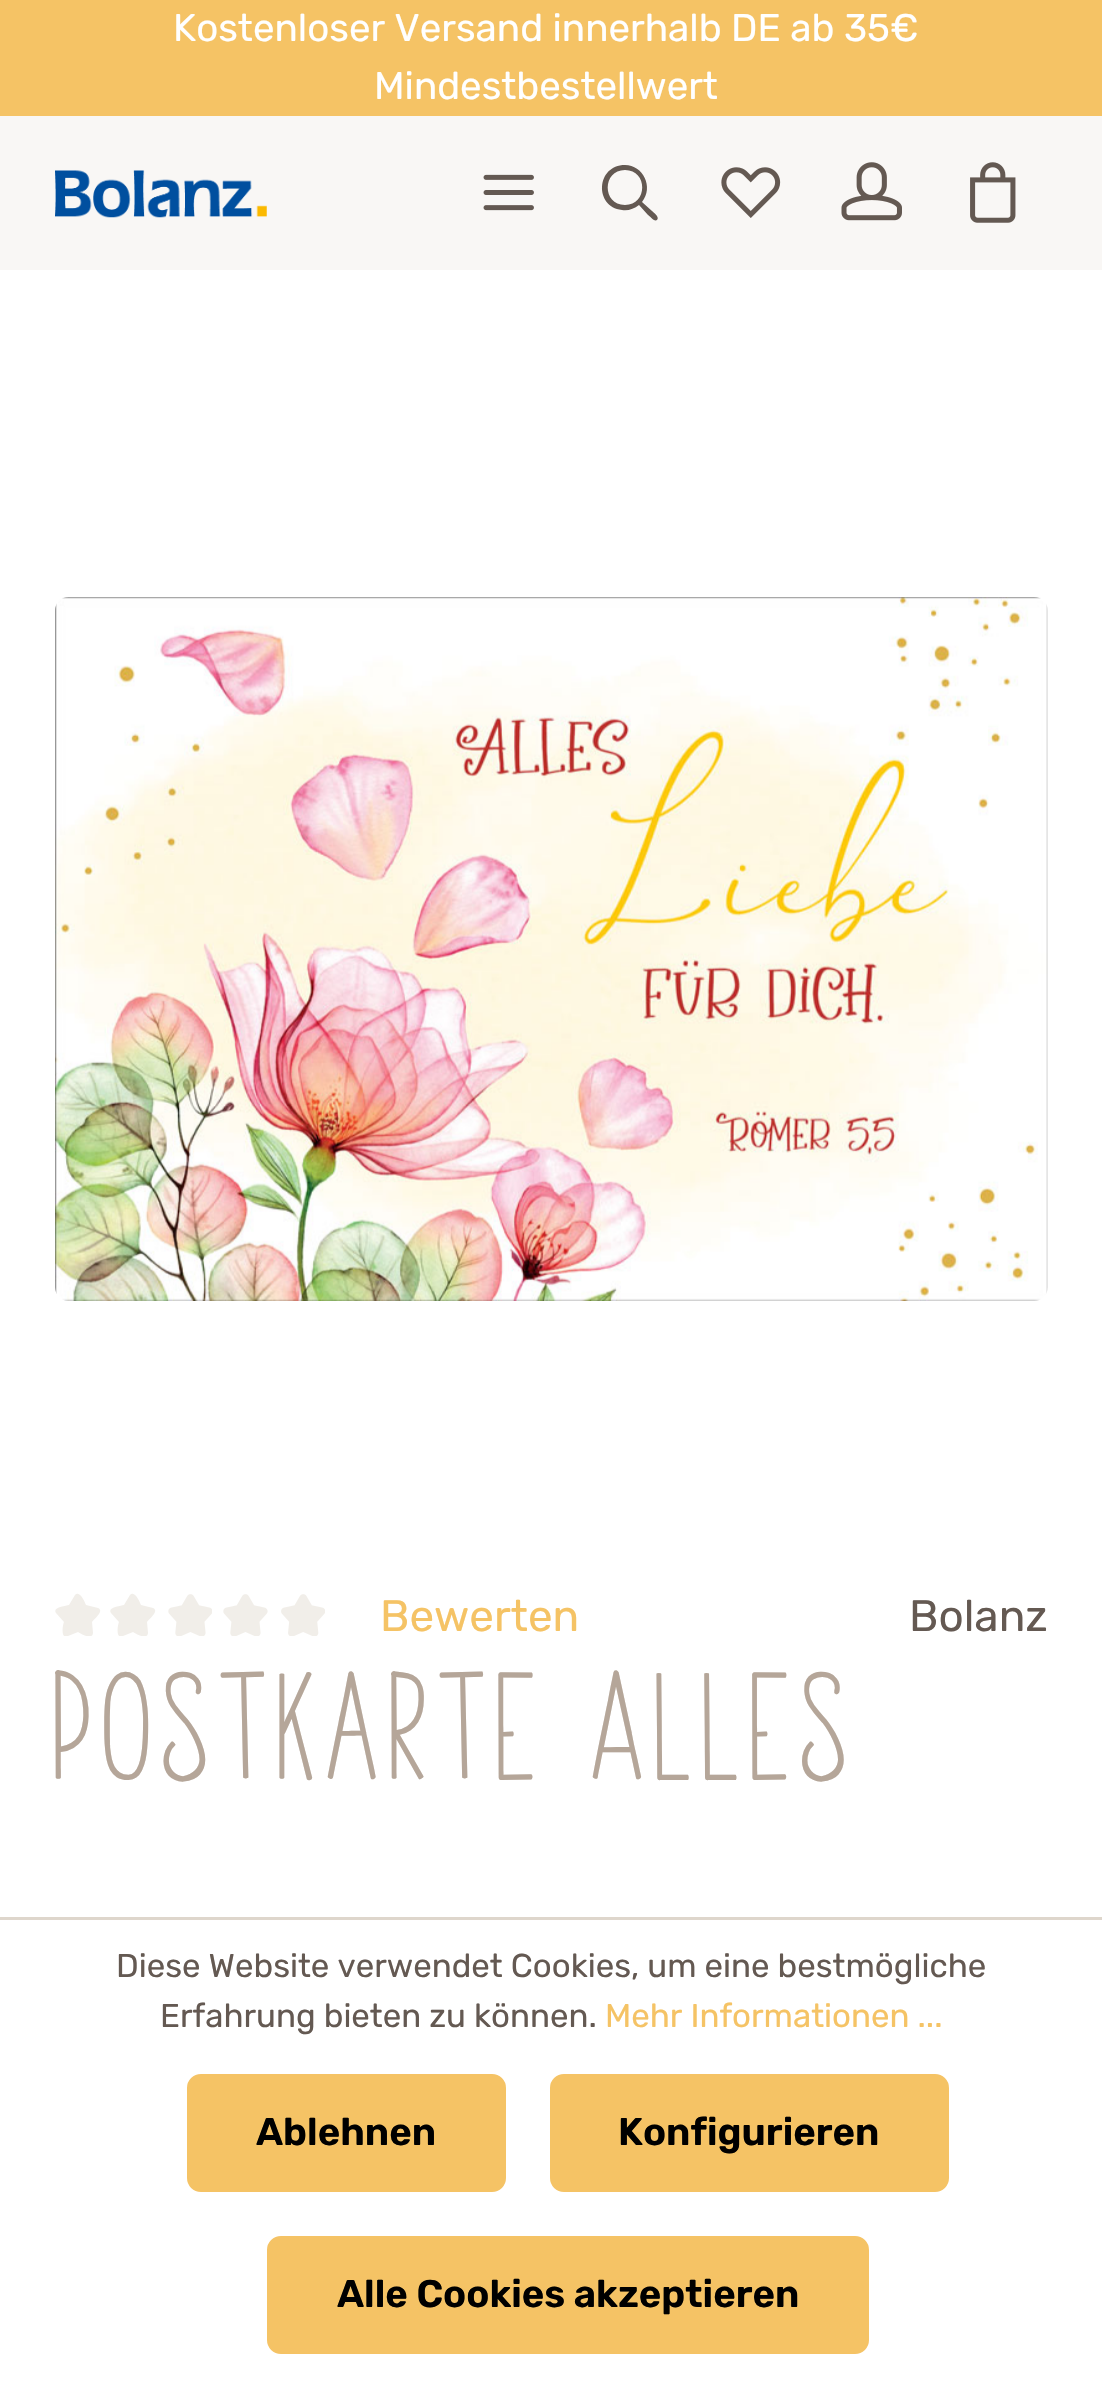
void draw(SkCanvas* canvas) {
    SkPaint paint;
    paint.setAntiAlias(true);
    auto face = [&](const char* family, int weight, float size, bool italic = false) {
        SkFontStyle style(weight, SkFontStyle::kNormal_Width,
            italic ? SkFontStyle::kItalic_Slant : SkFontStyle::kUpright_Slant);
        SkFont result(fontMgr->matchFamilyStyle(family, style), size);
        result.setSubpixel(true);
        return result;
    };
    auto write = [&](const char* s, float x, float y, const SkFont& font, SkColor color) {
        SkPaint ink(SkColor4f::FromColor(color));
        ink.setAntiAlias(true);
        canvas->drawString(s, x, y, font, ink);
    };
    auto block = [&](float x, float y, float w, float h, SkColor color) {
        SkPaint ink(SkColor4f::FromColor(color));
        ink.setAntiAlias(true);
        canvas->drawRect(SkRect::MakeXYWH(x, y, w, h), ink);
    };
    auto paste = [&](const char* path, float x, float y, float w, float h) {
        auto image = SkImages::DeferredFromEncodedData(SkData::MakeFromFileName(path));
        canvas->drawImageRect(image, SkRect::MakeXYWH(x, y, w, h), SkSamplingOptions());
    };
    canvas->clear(SK_ColorWHITE);
    block(0, 0, 1102, 116, SkColorSetRGB(245, 195, 101));
    auto kFont1 = face("Rubik", 300, 38.5f);
    write("Kostenloser Versand innerhalb DE ab 35€", 173, 41, kFont1, SK_ColorWHITE);
    write("Mindestbestellwert", 374, 99, kFont1, SK_ColorWHITE);
    block(0, 116, 1102, 154, SkColorSetRGB(249, 247, 245));
    paste("pic1.png", 55, 170, 212, 48);
    paste("pic2.png", 483, 174, 51, 37);
    paint.setColor(SkColorSetRGB(100, 89, 82));
    canvas->drawPath(SkPathBuilder(SkPathFillType::kEvenOdd).moveTo(625, 165).cubicTo(643, 165, 654, 187, 642, 202).lineTo(652, 211).cubicTo(653, 212, 660, 217, 657, 220).cubicTo(654, 222, 650, 216, 648, 215).lineTo(639, 205).cubicTo(634, 209, 628, 211, 622, 210).cubicTo(594, 207, 596, 165, 625, 165).close().moveTo(625, 170).cubicTo(602, 170, 602, 205, 625, 205).cubicTo(648, 205, 648, 170, 625, 170).close().detach(), paint);
    paste("pic3.png", 721, 167, 60, 51);
    paste("pic4.png", 841, 162, 61, 59);
    paste("pic5.png", 970, 162, 46, 61);
    paste("pic6.png", 55, 597, 993, 704);
    canvas->save();
    canvas->clipRect(SkRect::MakeXYWH(55, 1592, 47, 44));
    paint.setColor(SkColorSetRGB(241, 238, 233));
    canvas->drawPath(SkPathBuilder(SkPathFillType::kEvenOdd).moveTo(68, 1636).cubicTo(60, 1640, 63, 1624, 64, 1622).lineTo(56, 1613).cubicTo(52, 1607, 66, 1606, 69, 1605).lineTo(75, 1595).cubicTo(80, 1590, 85, 1603, 86, 1605).lineTo(98, 1608).cubicTo(105, 1611, 93, 1620, 92, 1622).lineTo(93, 1633).cubicTo(92, 1641, 80, 1633, 78, 1632).close().detach(), paint);
    canvas->restore();
    canvas->save();
    canvas->clipRect(SkRect::MakeXYWH(110, 1592, 47, 44));
    canvas->drawPath(SkPathBuilder(SkPathFillType::kEvenOdd).moveTo(123, 1636).cubicTo(115, 1640, 118, 1624, 119, 1622).lineTo(111, 1613).cubicTo(107, 1607, 121, 1606, 124, 1605).lineTo(130, 1595).cubicTo(135, 1590, 140, 1603, 141, 1605).lineTo(153, 1608).cubicTo(160, 1611, 148, 1620, 147, 1622).lineTo(148, 1633).cubicTo(147, 1641, 135, 1633, 133, 1632).close().detach(), paint);
    canvas->restore();
    paste("pic7.png", 168, 1594, 44, 42);
    paste("pic8.png", 223, 1594, 45, 42);
    paste("pic9.png", 281, 1594, 44, 42);
    auto kFont2 = face("Rubik", 300, 44);
    write("Bewerten", 380, 1631, kFont2, SkColorSetRGB(245, 195, 101));
    write("Bolanz", 909, 1631, kFont2, SkColorSetRGB(100, 89, 82));
    auto kFont3 = face("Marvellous", 700, 154);
    write("Postkarte Alles", 55, 1779, kFont3, SkColorSetRGB(181, 166, 153));
    block(0, 1917, 1102, 3, SkColorSetRGB(222, 214, 204));
    auto kFont4 = face("Rubik", 300, 33);
    write("Diese Website verwendet Cookies, um eine bestmögliche", 116, 1977, kFont4, SkColorSetRGB(100, 89, 82));
    write("Erfahrung bieten zu können.", 160, 2027, kFont4, SkColorSetRGB(100, 89, 82));
    write("Mehr Informationen ...", 605, 2027, kFont4, SkColorSetRGB(245, 195, 101));
    paint.setColor(SkColorSetRGB(245, 195, 101));
    canvas->drawRoundRect(SkRect::MakeXYWH(188.5f, 2075.5f, 316, 115), 12.5f, 12.5f, paint);
    paint.setStyle(SkPaint::kStroke_Style);
    paint.setStrokeWidth(3);
    canvas->drawRoundRect(SkRect::MakeXYWH(188.5f, 2075.5f, 316, 115), 12.5f, 12.5f, paint);
    auto kFont5 = face("Rubik", 600, 38.5f);
    write("Ablehnen", 256, 2145, kFont5, SK_ColorBLACK);
    paint.setStyle(SkPaint::kFill_Style);
    canvas->drawRoundRect(SkRect::MakeXYWH(551.5f, 2075.5f, 396, 115), 12.5f, 12.5f, paint);
    paint.setStyle(SkPaint::kStroke_Style);
    canvas->drawRoundRect(SkRect::MakeXYWH(551.5f, 2075.5f, 396, 115), 12.5f, 12.5f, paint);
    write("Konfigurieren", 618, 2145, kFont5, SK_ColorBLACK);
    paint.setStyle(SkPaint::kFill_Style);
    canvas->drawRoundRect(SkRect::MakeXYWH(268.5f, 2237.5f, 599, 115), 12.5f, 12.5f, paint);
    paint.setStyle(SkPaint::kStroke_Style);
    canvas->drawRoundRect(SkRect::MakeXYWH(268.5f, 2237.5f, 599, 115), 12.5f, 12.5f, paint);
    write("Alle Cookies akzeptieren", 337, 2307, kFont5, SK_ColorBLACK);
}
